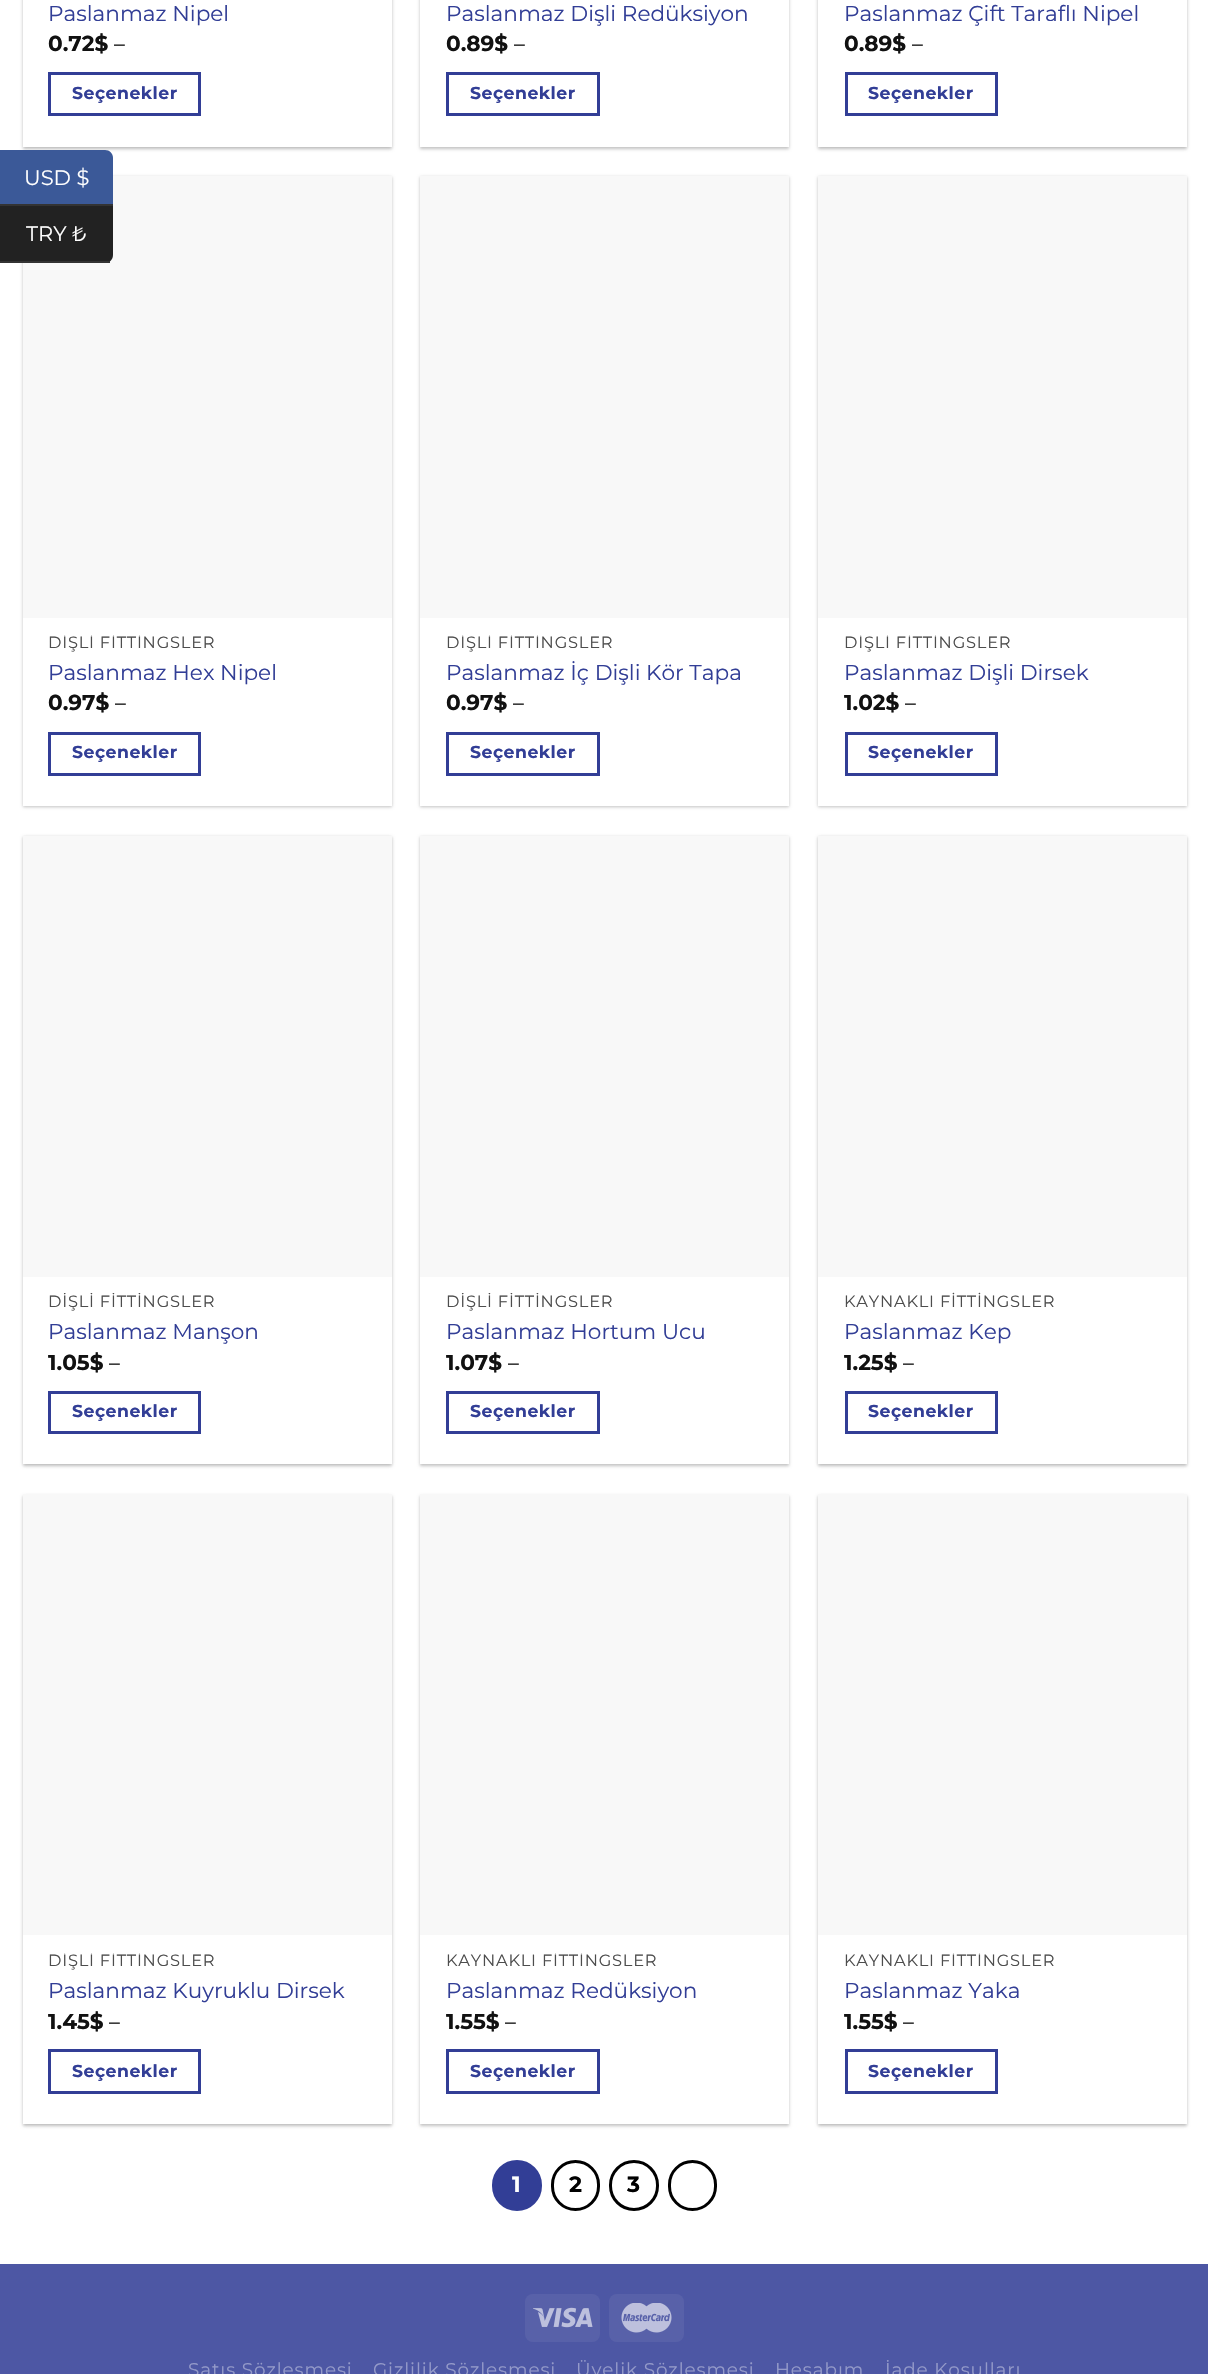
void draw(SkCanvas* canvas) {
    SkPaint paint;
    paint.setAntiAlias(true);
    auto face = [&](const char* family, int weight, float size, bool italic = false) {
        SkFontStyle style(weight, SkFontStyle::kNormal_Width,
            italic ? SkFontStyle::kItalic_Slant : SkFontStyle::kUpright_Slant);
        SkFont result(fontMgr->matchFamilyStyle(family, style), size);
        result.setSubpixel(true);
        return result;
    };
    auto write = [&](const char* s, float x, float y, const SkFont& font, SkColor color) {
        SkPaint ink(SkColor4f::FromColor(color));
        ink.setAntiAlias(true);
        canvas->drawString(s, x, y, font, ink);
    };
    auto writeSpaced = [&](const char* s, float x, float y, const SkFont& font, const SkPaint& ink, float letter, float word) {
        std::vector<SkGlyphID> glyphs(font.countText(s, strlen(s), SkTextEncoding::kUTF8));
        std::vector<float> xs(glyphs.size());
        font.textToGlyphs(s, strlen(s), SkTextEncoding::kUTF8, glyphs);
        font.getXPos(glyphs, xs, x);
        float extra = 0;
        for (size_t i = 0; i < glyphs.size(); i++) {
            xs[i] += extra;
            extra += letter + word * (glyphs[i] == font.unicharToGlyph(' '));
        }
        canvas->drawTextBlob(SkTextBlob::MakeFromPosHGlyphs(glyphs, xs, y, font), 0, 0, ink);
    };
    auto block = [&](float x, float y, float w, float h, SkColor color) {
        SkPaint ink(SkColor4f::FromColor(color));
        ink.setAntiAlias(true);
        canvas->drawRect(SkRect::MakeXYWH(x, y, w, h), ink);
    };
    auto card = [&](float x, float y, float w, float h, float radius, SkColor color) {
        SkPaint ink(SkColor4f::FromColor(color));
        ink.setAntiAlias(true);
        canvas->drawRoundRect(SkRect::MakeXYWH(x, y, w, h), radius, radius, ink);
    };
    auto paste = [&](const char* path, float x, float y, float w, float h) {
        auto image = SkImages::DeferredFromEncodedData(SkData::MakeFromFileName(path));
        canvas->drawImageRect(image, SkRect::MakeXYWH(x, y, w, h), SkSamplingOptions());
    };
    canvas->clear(SK_ColorWHITE);
    paint.setColor(SkColorSetARGB(61, 0, 0, 0));
    paint.setMaskFilter(SkMaskFilter::MakeBlur(kNormal_SkBlurStyle, 1.5f));
    canvas->drawRect(SkRect::MakeXYWH(23, -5, 369, 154), paint);
    paint.setMaskFilter(nullptr);
    paint.setColor(SkColorSetARGB(31, 0, 0, 0));
    paint.setMaskFilter(SkMaskFilter::MakeBlur(kNormal_SkBlurStyle, 2));
    canvas->drawRect(SkRect::MakeXYWH(26, -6, 363, 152), paint);
    paint.setMaskFilter(nullptr);
    block(23, 0, 369, 147, SK_ColorWHITE);
    auto kFont1 = face("Montserrat", 400, 21.6f);
    write("Paslanmaz Nipel", 48, 21, kFont1, SkColorSetRGB(50, 62, 150));
    auto kFont2 = face("Montserrat", 700, 21.6f);
    write("0.72$", 48, 51, kFont2, SkColorSetRGB(17, 17, 17));
    write("–", 114, 51, kFont1, SK_ColorBLACK);
    paint.setStyle(SkPaint::kStroke_Style);
    paint.setStrokeWidth(3);
    paint.setColor(SkColorSetRGB(50, 62, 150));
    canvas->drawRect(SkRect::MakeXYWH(49.5f, 73.5f, 150, 41), paint);
    auto kFont3 = face("Montserrat", 700, 17.25f);
    paint.setStyle(SkPaint::kFill_Style);
    writeSpaced("Seçenekler", 72, 99, kFont3, paint, 0.5f, 0);
    canvas->save();
    canvas->clipPath(SkPathBuilder(SkPathFillType::kEvenOdd).moveTo(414, 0).lineTo(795, 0).lineTo(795, 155).lineTo(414, 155).close().moveTo(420, -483).lineTo(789, -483).lineTo(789, 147).lineTo(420, 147).close().detach(), true);
    paint.setColor(SkColorSetARGB(61, 0, 0, 0));
    paint.setMaskFilter(SkMaskFilter::MakeBlur(kNormal_SkBlurStyle, 1.5f));
    canvas->drawRect(SkRect::MakeXYWH(420, -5, 369, 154), paint);
    paint.setMaskFilter(nullptr);
    canvas->restore();
    write("Paslanmaz Dişli Redüksiyon", 446, 21, kFont1, SkColorSetRGB(50, 62, 150));
    write("0.89$", 446, 51, kFont2, SkColorSetRGB(17, 17, 17));
    write("–", 514, 51, kFont1, SK_ColorBLACK);
    paint.setStyle(SkPaint::kStroke_Style);
    paint.setColor(SkColorSetRGB(50, 62, 150));
    canvas->drawRect(SkRect::MakeXYWH(447.5f, 73.5f, 151, 41), paint);
    paint.setStyle(SkPaint::kFill_Style);
    writeSpaced("Seçenekler", 470, 99, kFont3, paint, 0.5f, 0);
    paint.setColor(SkColorSetARGB(61, 0, 0, 0));
    paint.setMaskFilter(SkMaskFilter::MakeBlur(kNormal_SkBlurStyle, 1.5f));
    canvas->drawRect(SkRect::MakeXYWH(818, -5, 369, 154), paint);
    paint.setMaskFilter(nullptr);
    paint.setColor(SkColorSetARGB(31, 0, 0, 0));
    paint.setMaskFilter(SkMaskFilter::MakeBlur(kNormal_SkBlurStyle, 2));
    canvas->drawRect(SkRect::MakeXYWH(821, -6, 363, 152), paint);
    paint.setMaskFilter(nullptr);
    block(818, 0, 369, 147, SK_ColorWHITE);
    write("Paslanmaz Çift Taraflı Nipel", 844, 21, kFont1, SkColorSetRGB(50, 62, 150));
    write("0.89$", 844, 51, kFont2, SkColorSetRGB(17, 17, 17));
    write("–", 912, 51, kFont1, SK_ColorBLACK);
    paint.setStyle(SkPaint::kStroke_Style);
    paint.setColor(SkColorSetRGB(50, 62, 150));
    canvas->drawRect(SkRect::MakeXYWH(846.5f, 73.5f, 150, 41), paint);
    paint.setStyle(SkPaint::kFill_Style);
    writeSpaced("Seçenekler", 868, 99, kFont3, paint, 0.5f, 0);
    paint.setColor(SkColorSetARGB(61, 0, 0, 0));
    paint.setMaskFilter(SkMaskFilter::MakeBlur(kNormal_SkBlurStyle, 1.5f));
    canvas->drawRect(SkRect::MakeXYWH(23, 177, 369, 630), paint);
    paint.setMaskFilter(nullptr);
    block(23, 618, 369, 188, SK_ColorWHITE);
    block(23, 176, 369, 442, SkColorSetRGB(248, 248, 248));
    canvas->save();
    canvas->clipRect(SkRect::MakeXYWH(48, 635, 317, 19));
    auto kFont4 = face("Montserrat", 400, 16.25f);
    paint.setColor(SkColorSetRGB(77, 77, 77));
    writeSpaced("DİŞLİ FİTTİNGSLER", 48, 648, kFont4, paint, 0.8f, 0);
    canvas->restore();
    write("Paslanmaz Hex Nipel", 48, 680, kFont1, SkColorSetRGB(50, 62, 150));
    write("0.97$", 48, 710, kFont2, SkColorSetRGB(17, 17, 17));
    write("–", 115, 710, kFont1, SK_ColorBLACK);
    paint.setStyle(SkPaint::kStroke_Style);
    paint.setColor(SkColorSetRGB(50, 62, 150));
    canvas->drawRect(SkRect::MakeXYWH(49.5f, 733.5f, 150, 41), paint);
    paint.setStyle(SkPaint::kFill_Style);
    writeSpaced("Seçenekler", 72, 758, kFont3, paint, 0.5f, 0);
    paint.setColor(SkColorSetARGB(61, 0, 0, 0));
    paint.setMaskFilter(SkMaskFilter::MakeBlur(kNormal_SkBlurStyle, 1.5f));
    canvas->drawRect(SkRect::MakeXYWH(420, 177, 369, 630), paint);
    paint.setMaskFilter(nullptr);
    block(420, 618, 369, 188, SK_ColorWHITE);
    block(420, 176, 369, 442, SkColorSetRGB(248, 248, 248));
    canvas->save();
    canvas->clipRect(SkRect::MakeXYWH(446, 635, 318, 19));
    paint.setColor(SkColorSetRGB(77, 77, 77));
    writeSpaced("DİŞLİ FİTTİNGSLER", 446, 648, kFont4, paint, 0.8f, 0);
    canvas->restore();
    write("Paslanmaz İç Dişli Kör Tapa", 446, 680, kFont1, SkColorSetRGB(50, 62, 150));
    write("0.97$", 446, 710, kFont2, SkColorSetRGB(17, 17, 17));
    write("–", 513, 710, kFont1, SK_ColorBLACK);
    paint.setStyle(SkPaint::kStroke_Style);
    paint.setColor(SkColorSetRGB(50, 62, 150));
    canvas->drawRect(SkRect::MakeXYWH(447.5f, 733.5f, 151, 41), paint);
    paint.setStyle(SkPaint::kFill_Style);
    writeSpaced("Seçenekler", 470, 758, kFont3, paint, 0.5f, 0);
    paint.setColor(SkColorSetARGB(61, 0, 0, 0));
    paint.setMaskFilter(SkMaskFilter::MakeBlur(kNormal_SkBlurStyle, 1.5f));
    canvas->drawRect(SkRect::MakeXYWH(818, 177, 369, 630), paint);
    paint.setMaskFilter(nullptr);
    block(818, 618, 369, 188, SK_ColorWHITE);
    block(818, 176, 369, 442, SkColorSetRGB(248, 248, 248));
    canvas->save();
    canvas->clipRect(SkRect::MakeXYWH(845, 635, 316, 19));
    paint.setColor(SkColorSetRGB(77, 77, 77));
    writeSpaced("DİŞLİ FİTTİNGSLER", 844, 648, kFont4, paint, 0.8f, 0);
    canvas->restore();
    write("Paslanmaz Dişli Dirsek", 844, 680, kFont1, SkColorSetRGB(50, 62, 150));
    write("1.02$", 844, 710, kFont2, SkColorSetRGB(17, 17, 17));
    write("–", 905, 710, kFont1, SK_ColorBLACK);
    paint.setStyle(SkPaint::kStroke_Style);
    paint.setColor(SkColorSetRGB(50, 62, 150));
    canvas->drawRect(SkRect::MakeXYWH(846.5f, 733.5f, 150, 41), paint);
    paint.setStyle(SkPaint::kFill_Style);
    writeSpaced("Seçenekler", 868, 758, kFont3, paint, 0.5f, 0);
    paint.setColor(SkColorSetARGB(61, 0, 0, 0));
    paint.setMaskFilter(SkMaskFilter::MakeBlur(kNormal_SkBlurStyle, 1.5f));
    canvas->drawRect(SkRect::MakeXYWH(23, 837, 369, 629), paint);
    paint.setMaskFilter(nullptr);
    paint.setColor(SkColorSetARGB(31, 0, 0, 0));
    paint.setMaskFilter(SkMaskFilter::MakeBlur(kNormal_SkBlurStyle, 2));
    canvas->drawRect(SkRect::MakeXYWH(26, 840, 363, 623), paint);
    paint.setMaskFilter(nullptr);
    block(23, 1277, 369, 187, SK_ColorWHITE);
    block(23, 836, 369, 441, SkColorSetRGB(248, 248, 248));
    canvas->save();
    canvas->clipRect(SkRect::MakeXYWH(48, 1293, 317, 20));
    paint.setColor(SkColorSetRGB(77, 77, 77));
    writeSpaced("DİŞLİ FİTTİNGSLER", 48, 1307, kFont4, paint, 0.8f, 0);
    canvas->restore();
    write("Paslanmaz Manşon", 48, 1339, kFont1, SkColorSetRGB(50, 62, 150));
    write("1.05$", 48, 1370, kFont2, SkColorSetRGB(17, 17, 17));
    write("–", 109, 1370, kFont1, SK_ColorBLACK);
    paint.setStyle(SkPaint::kStroke_Style);
    paint.setColor(SkColorSetRGB(50, 62, 150));
    canvas->drawRect(SkRect::MakeXYWH(49.5f, 1392.5f, 150, 40), paint);
    paint.setStyle(SkPaint::kFill_Style);
    writeSpaced("Seçenekler", 72, 1417, kFont3, paint, 0.5f, 0);
    canvas->save();
    canvas->clipPath(SkPathBuilder(SkPathFillType::kEvenOdd).moveTo(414, 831).lineTo(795, 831).lineTo(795, 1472).lineTo(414, 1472).close().moveTo(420, 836).lineTo(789, 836).lineTo(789, 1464).lineTo(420, 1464).close().detach(), true);
    paint.setColor(SkColorSetARGB(61, 0, 0, 0));
    paint.setMaskFilter(SkMaskFilter::MakeBlur(kNormal_SkBlurStyle, 1.5f));
    canvas->drawRect(SkRect::MakeXYWH(420, 837, 369, 629), paint);
    paint.setMaskFilter(nullptr);
    canvas->restore();
    block(420, 836, 369, 441, SkColorSetRGB(248, 248, 248));
    canvas->save();
    canvas->clipRect(SkRect::MakeXYWH(446, 1293, 318, 20));
    paint.setColor(SkColorSetRGB(77, 77, 77));
    writeSpaced("DİŞLİ FİTTİNGSLER", 446, 1307, kFont4, paint, 0.8f, 0);
    canvas->restore();
    write("Paslanmaz Hortum Ucu", 446, 1339, kFont1, SkColorSetRGB(50, 62, 150));
    write("1.07$", 446, 1370, kFont2, SkColorSetRGB(17, 17, 17));
    write("–", 508, 1370, kFont1, SK_ColorBLACK);
    paint.setStyle(SkPaint::kStroke_Style);
    paint.setColor(SkColorSetRGB(50, 62, 150));
    canvas->drawRect(SkRect::MakeXYWH(447.5f, 1392.5f, 151, 40), paint);
    paint.setStyle(SkPaint::kFill_Style);
    writeSpaced("Seçenekler", 470, 1417, kFont3, paint, 0.5f, 0);
    paint.setColor(SkColorSetARGB(61, 0, 0, 0));
    paint.setMaskFilter(SkMaskFilter::MakeBlur(kNormal_SkBlurStyle, 1.5f));
    canvas->drawRect(SkRect::MakeXYWH(818, 837, 369, 629), paint);
    paint.setMaskFilter(nullptr);
    paint.setColor(SkColorSetARGB(31, 0, 0, 0));
    paint.setMaskFilter(SkMaskFilter::MakeBlur(kNormal_SkBlurStyle, 2));
    canvas->drawRect(SkRect::MakeXYWH(821, 840, 363, 623), paint);
    paint.setMaskFilter(nullptr);
    block(818, 1277, 369, 187, SK_ColorWHITE);
    block(818, 836, 369, 441, SkColorSetRGB(248, 248, 248));
    paint.setColor(SkColorSetRGB(77, 77, 77));
    writeSpaced("KAYNAKLI FİTTİNGSLER", 844, 1307, kFont4, paint, 0.8f, 0);
    write("Paslanmaz Kep", 844, 1339, kFont1, SkColorSetRGB(50, 62, 150));
    write("1.25$", 844, 1370, kFont2, SkColorSetRGB(17, 17, 17));
    write("–", 903, 1370, kFont1, SK_ColorBLACK);
    paint.setStyle(SkPaint::kStroke_Style);
    paint.setColor(SkColorSetRGB(50, 62, 150));
    canvas->drawRect(SkRect::MakeXYWH(846.5f, 1392.5f, 150, 40), paint);
    paint.setStyle(SkPaint::kFill_Style);
    writeSpaced("Seçenekler", 868, 1417, kFont3, paint, 0.5f, 0);
    paint.setColor(SkColorSetARGB(61, 0, 0, 0));
    paint.setMaskFilter(SkMaskFilter::MakeBlur(kNormal_SkBlurStyle, 1.5f));
    canvas->drawRect(SkRect::MakeXYWH(23, 1496, 369, 630), paint);
    paint.setMaskFilter(nullptr);
    paint.setColor(SkColorSetARGB(31, 0, 0, 0));
    paint.setMaskFilter(SkMaskFilter::MakeBlur(kNormal_SkBlurStyle, 2));
    canvas->drawRect(SkRect::MakeXYWH(26, 1499, 363, 624), paint);
    paint.setMaskFilter(nullptr);
    block(23, 1935, 369, 189, SK_ColorWHITE);
    block(23, 1494, 369, 441, SkColorSetRGB(248, 248, 248));
    canvas->save();
    canvas->clipRect(SkRect::MakeXYWH(48, 1953, 317, 20));
    paint.setColor(SkColorSetRGB(77, 77, 77));
    writeSpaced("DİŞLİ FİTTİNGSLER", 48, 1966, kFont4, paint, 0.8f, 0);
    canvas->restore();
    write("Paslanmaz Kuyruklu Dirsek", 48, 1998, kFont1, SkColorSetRGB(50, 62, 150));
    write("1.45$", 48, 2029, kFont2, SkColorSetRGB(17, 17, 17));
    write("–", 109, 2029, kFont1, SK_ColorBLACK);
    paint.setStyle(SkPaint::kStroke_Style);
    paint.setColor(SkColorSetRGB(50, 62, 150));
    canvas->drawRect(SkRect::MakeXYWH(49.5f, 2050.5f, 150, 42), paint);
    paint.setStyle(SkPaint::kFill_Style);
    writeSpaced("Seçenekler", 72, 2077, kFont3, paint, 0.5f, 0);
    canvas->save();
    canvas->clipPath(SkPathBuilder(SkPathFillType::kEvenOdd).moveTo(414, 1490).lineTo(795, 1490).lineTo(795, 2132).lineTo(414, 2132).close().moveTo(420, 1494).lineTo(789, 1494).lineTo(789, 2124).lineTo(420, 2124).close().detach(), true);
    paint.setColor(SkColorSetARGB(61, 0, 0, 0));
    paint.setMaskFilter(SkMaskFilter::MakeBlur(kNormal_SkBlurStyle, 1.5f));
    canvas->drawRect(SkRect::MakeXYWH(420, 1496, 369, 630), paint);
    paint.setMaskFilter(nullptr);
    canvas->restore();
    block(420, 1494, 369, 441, SkColorSetRGB(248, 248, 248));
    canvas->save();
    canvas->clipRect(SkRect::MakeXYWH(446, 1953, 318, 20));
    paint.setColor(SkColorSetRGB(77, 77, 77));
    writeSpaced("KAYNAKLI FİTTİNGSLER", 446, 1966, kFont4, paint, 0.8f, 0);
    canvas->restore();
    write("Paslanmaz Redüksiyon", 446, 1998, kFont1, SkColorSetRGB(50, 62, 150));
    write("1.55$", 446, 2029, kFont2, SkColorSetRGB(17, 17, 17));
    write("–", 505, 2029, kFont1, SK_ColorBLACK);
    paint.setStyle(SkPaint::kStroke_Style);
    paint.setColor(SkColorSetRGB(50, 62, 150));
    canvas->drawRect(SkRect::MakeXYWH(447.5f, 2050.5f, 151, 42), paint);
    paint.setStyle(SkPaint::kFill_Style);
    writeSpaced("Seçenekler", 470, 2077, kFont3, paint, 0.5f, 0);
    paint.setColor(SkColorSetARGB(61, 0, 0, 0));
    paint.setMaskFilter(SkMaskFilter::MakeBlur(kNormal_SkBlurStyle, 1.5f));
    canvas->drawRect(SkRect::MakeXYWH(818, 1496, 369, 630), paint);
    paint.setMaskFilter(nullptr);
    paint.setColor(SkColorSetARGB(31, 0, 0, 0));
    paint.setMaskFilter(SkMaskFilter::MakeBlur(kNormal_SkBlurStyle, 2));
    canvas->drawRect(SkRect::MakeXYWH(821, 1499, 363, 624), paint);
    paint.setMaskFilter(nullptr);
    block(818, 1935, 369, 189, SK_ColorWHITE);
    block(818, 1494, 369, 441, SkColorSetRGB(248, 248, 248));
    canvas->save();
    canvas->clipRect(SkRect::MakeXYWH(845, 1953, 316, 20));
    paint.setColor(SkColorSetRGB(77, 77, 77));
    writeSpaced("KAYNAKLI FİTTİNGSLER", 844, 1966, kFont4, paint, 0.8f, 0);
    canvas->restore();
    write("Paslanmaz Yaka", 844, 1998, kFont1, SkColorSetRGB(50, 62, 150));
    write("1.55$", 844, 2029, kFont2, SkColorSetRGB(17, 17, 17));
    write("–", 903, 2029, kFont1, SK_ColorBLACK);
    paint.setStyle(SkPaint::kStroke_Style);
    paint.setColor(SkColorSetRGB(50, 62, 150));
    canvas->drawRect(SkRect::MakeXYWH(846.5f, 2050.5f, 150, 42), paint);
    paint.setStyle(SkPaint::kFill_Style);
    writeSpaced("Seçenekler", 868, 2077, kFont3, paint, 0.5f, 0);
    canvas->drawRoundRect(SkRect::MakeXYWH(493.5f, 2161.5f, 47, 48), 23.5f, 23.5f, paint);
    paint.setStyle(SkPaint::kStroke_Style);
    canvas->drawRoundRect(SkRect::MakeXYWH(493.5f, 2161.5f, 47, 48), 23.5f, 23.5f, paint);
    auto kFont5 = face("Montserrat", 700, 22);
    write("1", 512, 2192, kFont5, SK_ColorWHITE);
    paint.setColor(SK_ColorBLACK);
    canvas->drawRoundRect(SkRect::MakeXYWH(552.5f, 2161.5f, 46, 48), 23, 23, paint);
    write("2", 569, 2192, kFont5, SK_ColorBLACK);
    canvas->drawRoundRect(SkRect::MakeXYWH(610.5f, 2161.5f, 47, 48), 23.5f, 23.5f, paint);
    write("3", 627, 2192, kFont5, SK_ColorBLACK);
    canvas->drawRoundRect(SkRect::MakeXYWH(669.5f, 2161.5f, 46, 48), 23, 23, paint);
    block(0, 2264, 1208, 110, SkColorSetRGB(77, 87, 164));
    card(525, 2294, 75, 48, 8, SkColorSetRGB(88, 97, 169));
    paste("pic1.png", 533, 2307, 60, 21);
    card(609, 2294, 75, 48, 8, SkColorSetRGB(88, 97, 169));
    paste("pic2.png", 621, 2303, 51, 30);
    auto kFont6 = face("Montserrat", 400, 18.4f);
    paint.setStyle(SkPaint::kFill_Style);
    paint.setColor(SkColorSetRGB(148, 154, 201));
    writeSpaced("Satış Sözleşmesi", 188, 2376, kFont6, paint, 0.9f, 0);
    writeSpaced("Gizlilik Sözleşmesi", 373, 2376, kFont6, paint, 0.9f, 0);
    writeSpaced("Üyelik Sözleşmesi", 576, 2376, kFont6, paint, 0.9f, 0);
    writeSpaced("Hesabım", 775, 2376, kFont6, paint, 0.9f, 0);
    writeSpaced("İade Koşulları", 885, 2376, kFont6, paint, 0.9f, 0);
    paint.setColor(SkColorSetRGB(59, 89, 152));
    canvas->drawPath(SkPathBuilder().moveTo(0, 150).lineTo(105, 150).cubicTo(109.5f, 150, 113, 153.5f, 113, 158).lineTo(113, 206).lineTo(0, 206).close().detach(), paint);
    block(0, 204, 113, 2, SkColorSetRGB(51, 51, 51));
    auto kFont7 = face("Montserrat", 400, 21);
    write("USD $", 24, 185, kFont7, SK_ColorWHITE);
    paint.setColor(SkColorSetRGB(34, 34, 34));
    canvas->drawPath(SkPathBuilder().moveTo(0, 206).lineTo(113, 206).lineTo(113, 255).cubicTo(113, 259.5f, 109.5f, 263, 105, 263).lineTo(0, 263).close().detach(), paint);
    block(0, 261, 110, 2, SkColorSetRGB(51, 51, 51));
    write("TRY ₺", 26, 241, kFont7, SK_ColorWHITE);
}
